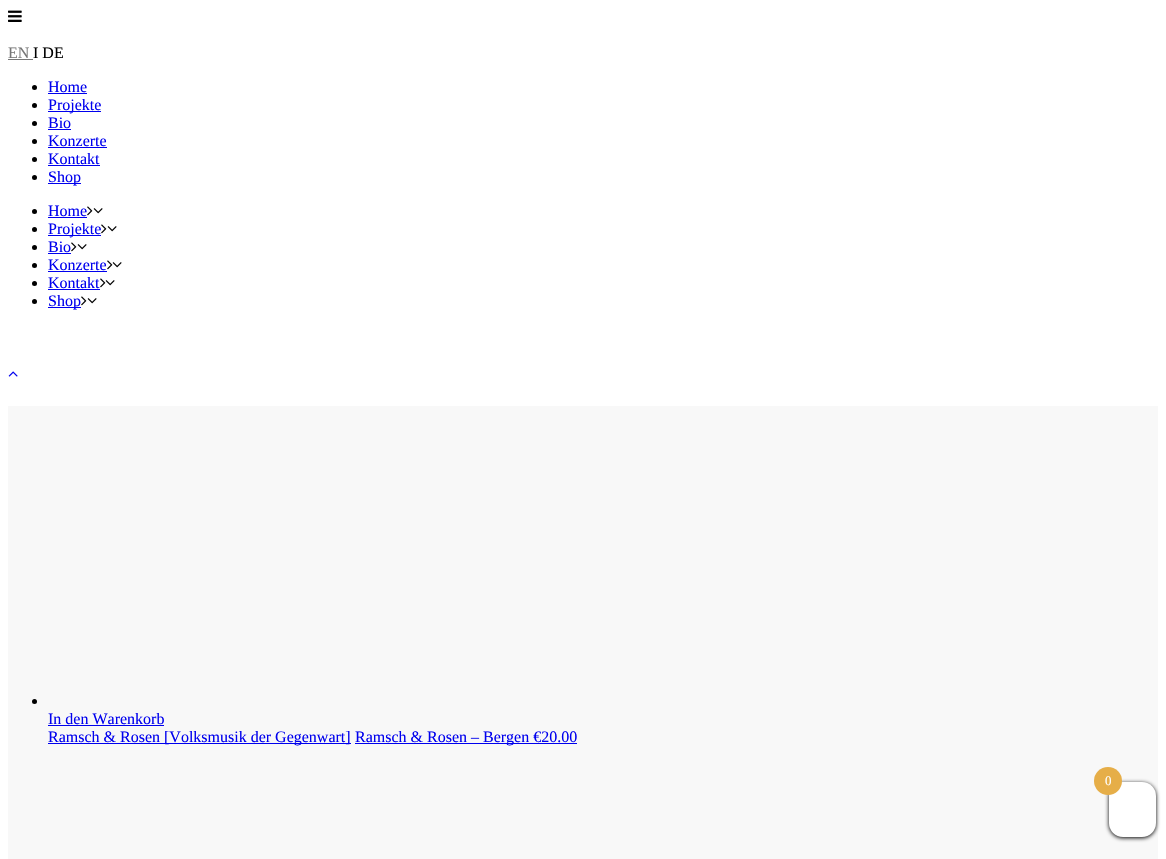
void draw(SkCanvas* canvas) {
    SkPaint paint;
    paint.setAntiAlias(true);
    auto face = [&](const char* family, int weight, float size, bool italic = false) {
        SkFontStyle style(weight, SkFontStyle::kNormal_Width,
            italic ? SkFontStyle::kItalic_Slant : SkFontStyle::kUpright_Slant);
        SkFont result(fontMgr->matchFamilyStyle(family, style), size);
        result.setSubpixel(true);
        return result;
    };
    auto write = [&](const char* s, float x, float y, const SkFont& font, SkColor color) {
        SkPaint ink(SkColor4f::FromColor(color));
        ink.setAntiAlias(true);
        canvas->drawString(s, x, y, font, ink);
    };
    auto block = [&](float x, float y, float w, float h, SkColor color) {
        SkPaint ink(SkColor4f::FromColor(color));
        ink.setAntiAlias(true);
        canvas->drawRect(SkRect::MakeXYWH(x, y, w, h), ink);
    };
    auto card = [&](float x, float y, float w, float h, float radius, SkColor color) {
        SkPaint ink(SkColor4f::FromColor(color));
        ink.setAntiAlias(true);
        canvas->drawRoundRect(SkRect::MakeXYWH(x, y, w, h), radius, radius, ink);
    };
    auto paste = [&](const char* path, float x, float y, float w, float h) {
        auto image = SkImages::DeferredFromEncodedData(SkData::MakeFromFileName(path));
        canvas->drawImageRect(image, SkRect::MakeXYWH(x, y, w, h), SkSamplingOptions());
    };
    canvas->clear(SK_ColorWHITE);
    paste("pic1.png", 8, 10, 14, 12);
    auto kFont1 = face("Liberation Serif", 400, 16);
    write("EN", 8, 58, kFont1, SkColorSetRGB(119, 119, 119));
    block(8, 59, 25, 1, SkColorSetRGB(119, 119, 119));
    write("I DE", 33, 58, kFont1, SK_ColorBLACK);
    paint.setColor(SK_ColorBLACK);
    canvas->drawCircle(34.5f, 87.5f, 2.5f, paint);
    write("Home", 48, 92, kFont1, SkColorSetRGB(0, 0, 238));
    block(48, 93, 39, 1, SkColorSetRGB(0, 0, 238));
    canvas->drawCircle(34.5f, 105.5f, 2.5f, paint);
    block(48, 111, 53, 1, SkColorSetRGB(0, 0, 238));
    write("Projekte", 48, 110, kFont1, SkColorSetRGB(0, 0, 238));
    canvas->drawCircle(34.5f, 123.5f, 2.5f, paint);
    write("Bio", 48, 128, kFont1, SkColorSetRGB(0, 0, 238));
    block(48, 129, 23, 1, SkColorSetRGB(0, 0, 238));
    canvas->drawCircle(34.5f, 141.5f, 2.5f, paint);
    write("Konzerte", 48, 146, kFont1, SkColorSetRGB(0, 0, 238));
    block(48, 147, 59, 1, SkColorSetRGB(0, 0, 238));
    canvas->drawCircle(34.5f, 159.5f, 2.5f, paint);
    write("Kontakt", 48, 164, kFont1, SkColorSetRGB(0, 0, 238));
    block(48, 165, 52, 1, SkColorSetRGB(0, 0, 238));
    canvas->drawCircle(34.5f, 177.5f, 2.5f, paint);
    block(48, 183, 33, 1, SkColorSetRGB(0, 0, 238));
    write("Shop", 48, 182, kFont1, SkColorSetRGB(0, 0, 238));
    canvas->drawCircle(34.5f, 211.5f, 2.5f, paint);
    write("Home", 48, 216, kFont1, SkColorSetRGB(0, 0, 238));
    block(48, 217, 39, 1, SkColorSetRGB(0, 0, 238));
    paste("pic2.png", 87, 206, 6, 10);
    paste("pic3.png", 93, 208, 10, 6);
    canvas->drawCircle(34.5f, 229.5f, 2.5f, paint);
    block(48, 235, 53, 1, SkColorSetRGB(0, 0, 238));
    write("Projekte", 48, 234, kFont1, SkColorSetRGB(0, 0, 238));
    paste("pic2.png", 101, 224, 6, 10);
    paste("pic3.png", 107, 226, 10, 6);
    canvas->drawCircle(34.5f, 247.5f, 2.5f, paint);
    write("Bio", 48, 252, kFont1, SkColorSetRGB(0, 0, 238));
    block(48, 253, 23, 1, SkColorSetRGB(0, 0, 238));
    paste("pic2.png", 71, 242, 6, 10);
    paste("pic3.png", 77, 244, 10, 6);
    canvas->drawCircle(34.5f, 265.5f, 2.5f, paint);
    write("Konzerte", 48, 270, kFont1, SkColorSetRGB(0, 0, 238));
    block(48, 271, 59, 1, SkColorSetRGB(0, 0, 238));
    paste("pic2.png", 107, 260, 6, 10);
    paste("pic4.png", 112, 262, 10, 6);
    canvas->drawCircle(34.5f, 283.5f, 2.5f, paint);
    write("Kontakt", 48, 288, kFont1, SkColorSetRGB(0, 0, 238));
    block(48, 289, 52, 1, SkColorSetRGB(0, 0, 238));
    paste("pic2.png", 100, 278, 6, 10);
    paste("pic4.png", 105, 280, 10, 6);
    canvas->drawCircle(34.5f, 301.5f, 2.5f, paint);
    block(48, 307, 33, 1, SkColorSetRGB(0, 0, 238));
    write("Shop", 48, 306, kFont1, SkColorSetRGB(0, 0, 238));
    paste("pic2.png", 81, 296, 6, 10);
    paste("pic3.png", 87, 298, 10, 6);
    paste("pic5.png", 8, 371, 10, 6);
    block(8, 406, 1150, 453, SkColorSetRGB(248, 248, 248));
    canvas->drawCircle(34.5f, 701.5f, 2.5f, paint);
    write("In den Warenkorb", 48, 724, kFont1, SkColorSetRGB(0, 0, 238));
    block(48, 725, 116, 1, SkColorSetRGB(0, 0, 238));
    block(48, 743, 303, 1, SkColorSetRGB(0, 0, 238));
    write("Ramsch & Rosen [Volksmusik der Gegenwart]", 48, 742, kFont1, SkColorSetRGB(0, 0, 238));
    block(355, 743, 222, 1, SkColorSetRGB(0, 0, 238));
    write("Ramsch & Rosen – Bergen €20.00", 355, 742, kFont1, SkColorSetRGB(0, 0, 238));
    paint.setMaskFilter(SkMaskFilter::MakeBlur(kNormal_SkBlurStyle, 2));
    canvas->drawRoundRect(SkRect::MakeXYWH(1109, 783, 47, 55), 14, 14, paint);
    paint.setMaskFilter(nullptr);
    card(1109, 782, 47, 55, 14, SK_ColorWHITE);
    paint.setColor(SkColorSetRGB(230, 174, 72));
    canvas->drawCircle(1108, 781, 14, paint);
    auto kFont2 = face("Liberation Serif", 400, 13);
    write("0", 1105, 785, kFont2, SK_ColorWHITE);
}
